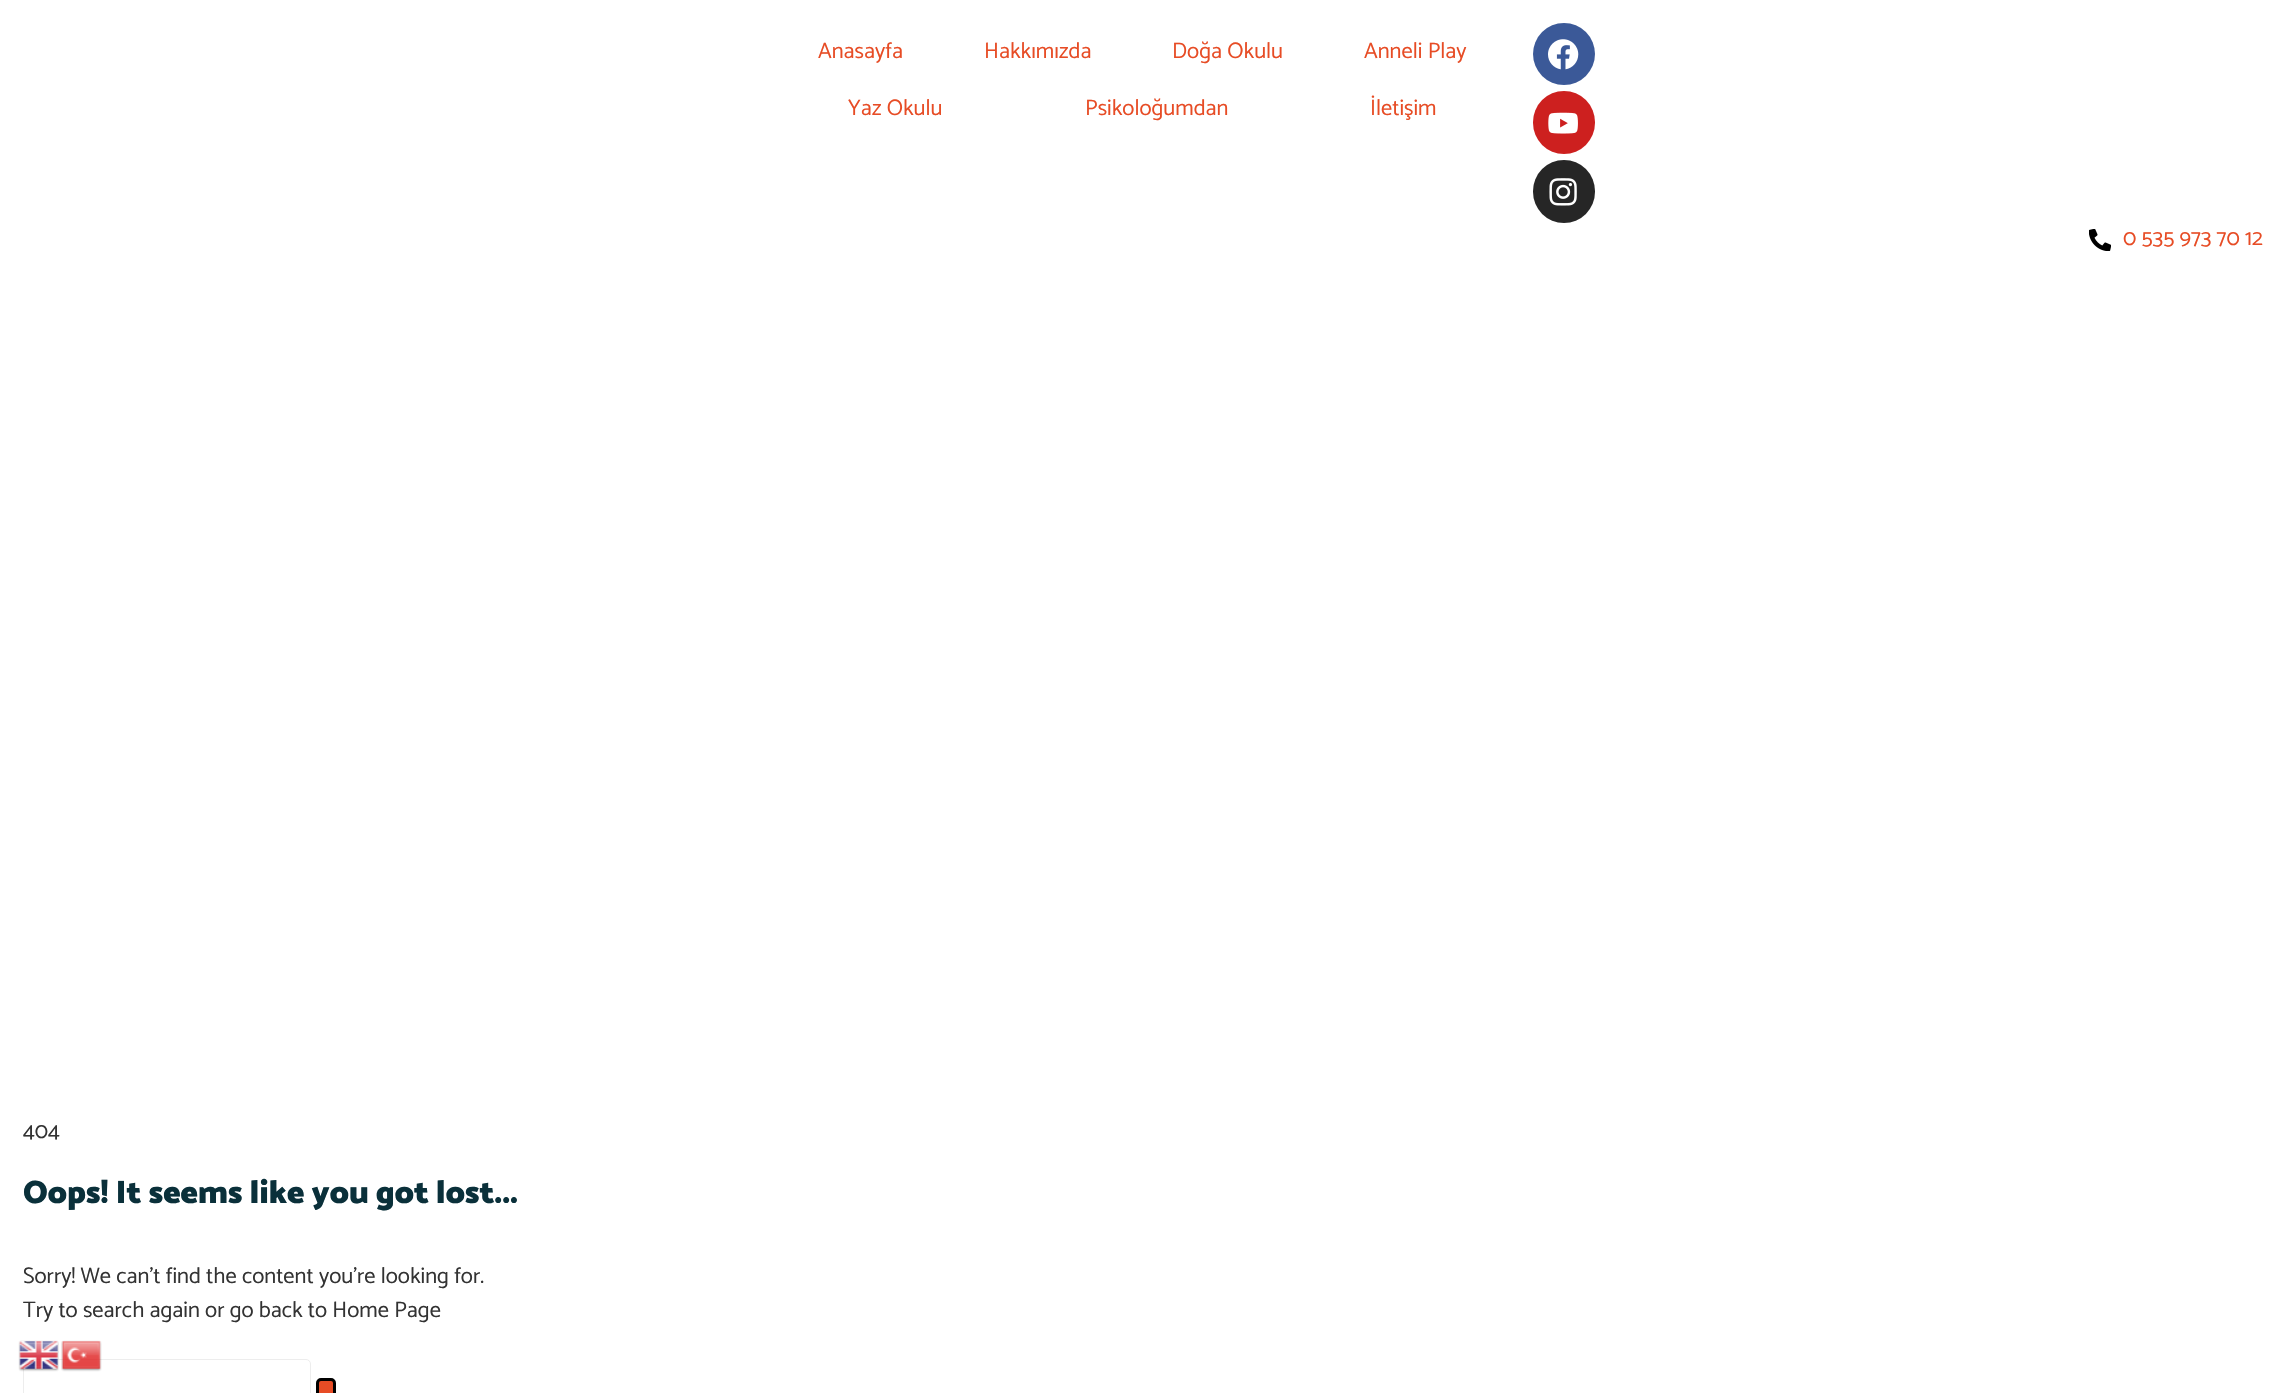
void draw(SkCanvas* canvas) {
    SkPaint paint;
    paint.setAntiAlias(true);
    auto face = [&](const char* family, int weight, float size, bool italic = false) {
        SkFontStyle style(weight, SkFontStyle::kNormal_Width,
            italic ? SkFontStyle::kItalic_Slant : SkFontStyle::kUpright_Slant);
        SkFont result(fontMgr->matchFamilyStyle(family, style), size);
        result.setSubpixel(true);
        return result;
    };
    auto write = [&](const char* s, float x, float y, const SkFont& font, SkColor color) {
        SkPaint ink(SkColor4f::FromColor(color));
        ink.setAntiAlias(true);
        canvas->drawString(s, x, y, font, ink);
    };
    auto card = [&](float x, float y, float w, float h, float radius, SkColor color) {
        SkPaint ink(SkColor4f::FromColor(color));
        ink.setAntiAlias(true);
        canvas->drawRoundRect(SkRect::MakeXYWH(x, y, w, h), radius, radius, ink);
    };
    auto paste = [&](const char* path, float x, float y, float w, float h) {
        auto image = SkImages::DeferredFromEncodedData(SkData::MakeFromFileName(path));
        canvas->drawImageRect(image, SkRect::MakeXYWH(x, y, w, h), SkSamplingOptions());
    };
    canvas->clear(SK_ColorWHITE);
    auto kFont1 = face("Catamaran", 400, 22.5f);
    write("Anasayfa", 818, 58, kFont1, SkColorSetRGB(231, 76, 37));
    write("Hakkımızda", 984, 58, kFont1, SkColorSetRGB(231, 76, 37));
    write("Doğa Okulu", 1172, 58, kFont1, SkColorSetRGB(231, 76, 37));
    write("Anneli Play", 1364, 58, kFont1, SkColorSetRGB(231, 76, 37));
    write("Yaz Okulu", 848, 115, kFont1, SkColorSetRGB(231, 76, 37));
    write("Psikoloğumdan", 1085, 115, kFont1, SkColorSetRGB(231, 76, 37));
    write("İletişim", 1370, 115, kFont1, SkColorSetRGB(231, 76, 37));
    paint.setColor(SkColorSetRGB(59, 89, 152));
    canvas->drawCircle(1564, 54, 31, paint);
    paste("pic1.png", 1548, 39, 31, 31);
    card(1533, 91, 62, 63, 31, SkColorSetRGB(205, 32, 31));
    paste("pic2.png", 1548, 112, 30, 22);
    card(1533, 160, 62, 63, 31, SkColorSetRGB(38, 38, 38));
    paste("pic3.png", 1549, 178, 28, 28);
    paste("pic4.png", 2089, 229, 22, 22);
    write("0 535 973 70 12", 2123, 245, kFont1, SkColorSetRGB(231, 76, 37));
    write("404", 23, 1138, kFont1, SkColorSetRGB(51, 51, 51));
    auto kFont2 = face("Catamaran", 900, 32.5f);
    write("Oops! It seems like you got lost...", 23, 1203, kFont2, SkColorSetRGB(10, 48, 58));
    write("Sorry! We can’t find the content you’re looking for.", 23, 1283, kFont1, SkColorSetRGB(51, 51, 51));
    write("Try to search again or go back to Home Page", 23, 1317, kFont1, SkColorSetRGB(51, 51, 51));
    paint.setStyle(SkPaint::kStroke_Style);
    paint.setStrokeWidth(1);
    paint.setColor(SkColorSetRGB(237, 237, 237));
    canvas->drawRoundRect(SkRect::MakeXYWH(23.5f, 1359.5f, 287, 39), 4.5f, 4.5f, paint);
    paint.setStyle(SkPaint::kFill_Style);
    paint.setColor(SkColorSetRGB(231, 76, 37));
    canvas->drawRoundRect(SkRect::MakeXYWH(317.5f, 1379.5f, 17, 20), 3.5f, 3.5f, paint);
    paint.setStyle(SkPaint::kStroke_Style);
    paint.setStrokeWidth(3);
    paint.setColor(SK_ColorBLACK);
    canvas->drawRoundRect(SkRect::MakeXYWH(317.5f, 1379.5f, 17, 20), 3.5f, 3.5f, paint);
    paste("pic5.png", 18, 1340, 41, 32);
    paste("pic6.png", 61, 1340, 41, 32);
}
